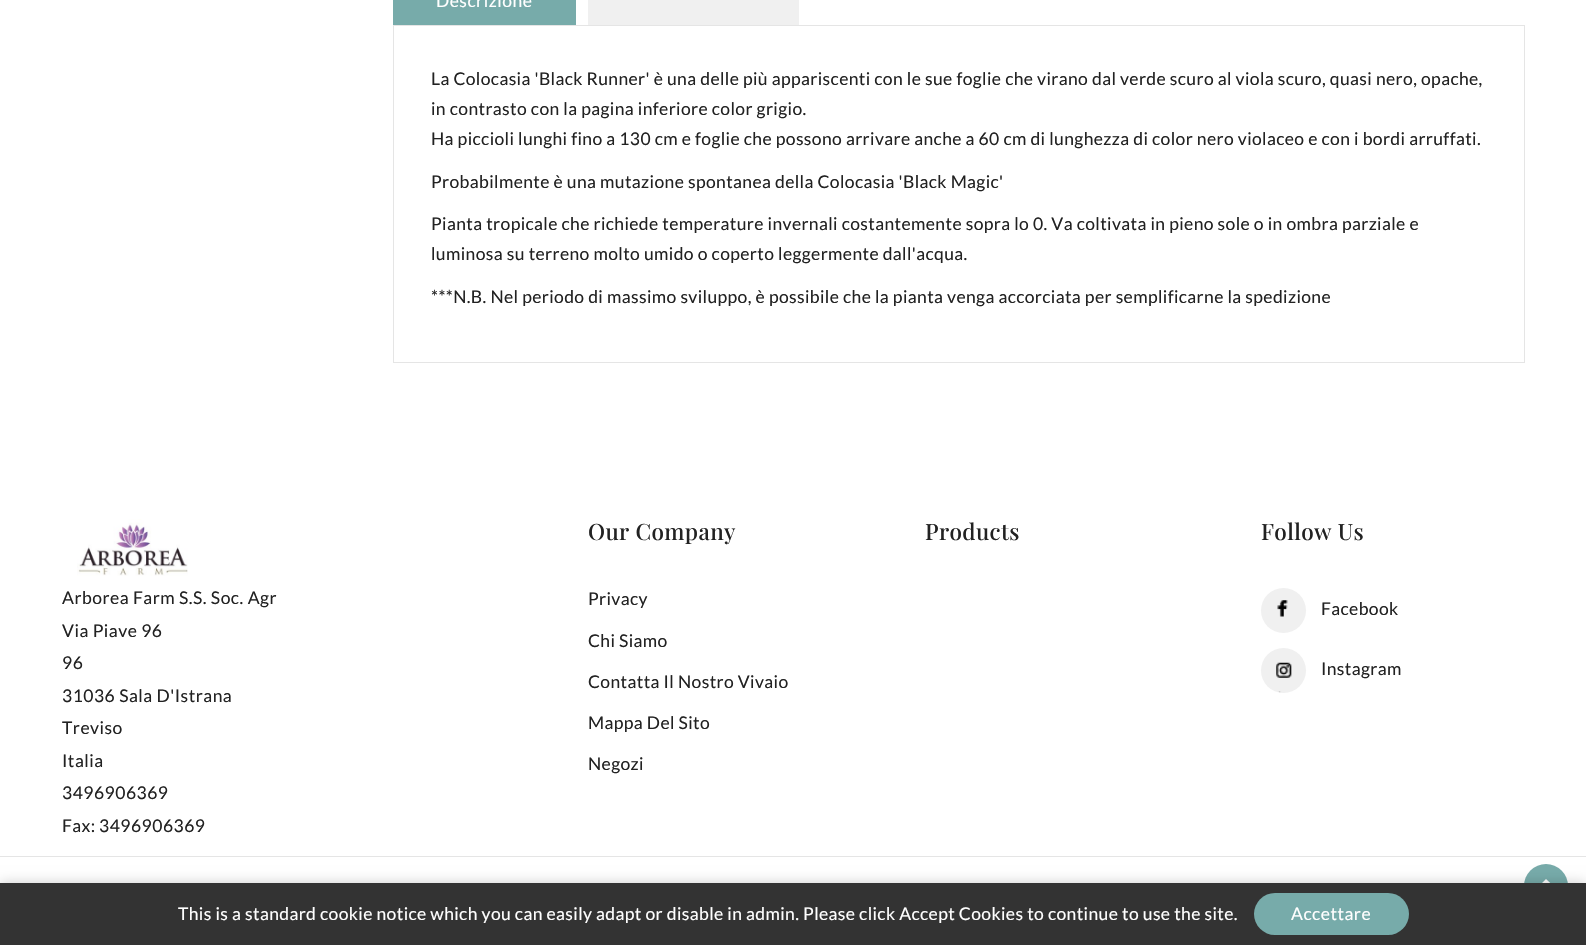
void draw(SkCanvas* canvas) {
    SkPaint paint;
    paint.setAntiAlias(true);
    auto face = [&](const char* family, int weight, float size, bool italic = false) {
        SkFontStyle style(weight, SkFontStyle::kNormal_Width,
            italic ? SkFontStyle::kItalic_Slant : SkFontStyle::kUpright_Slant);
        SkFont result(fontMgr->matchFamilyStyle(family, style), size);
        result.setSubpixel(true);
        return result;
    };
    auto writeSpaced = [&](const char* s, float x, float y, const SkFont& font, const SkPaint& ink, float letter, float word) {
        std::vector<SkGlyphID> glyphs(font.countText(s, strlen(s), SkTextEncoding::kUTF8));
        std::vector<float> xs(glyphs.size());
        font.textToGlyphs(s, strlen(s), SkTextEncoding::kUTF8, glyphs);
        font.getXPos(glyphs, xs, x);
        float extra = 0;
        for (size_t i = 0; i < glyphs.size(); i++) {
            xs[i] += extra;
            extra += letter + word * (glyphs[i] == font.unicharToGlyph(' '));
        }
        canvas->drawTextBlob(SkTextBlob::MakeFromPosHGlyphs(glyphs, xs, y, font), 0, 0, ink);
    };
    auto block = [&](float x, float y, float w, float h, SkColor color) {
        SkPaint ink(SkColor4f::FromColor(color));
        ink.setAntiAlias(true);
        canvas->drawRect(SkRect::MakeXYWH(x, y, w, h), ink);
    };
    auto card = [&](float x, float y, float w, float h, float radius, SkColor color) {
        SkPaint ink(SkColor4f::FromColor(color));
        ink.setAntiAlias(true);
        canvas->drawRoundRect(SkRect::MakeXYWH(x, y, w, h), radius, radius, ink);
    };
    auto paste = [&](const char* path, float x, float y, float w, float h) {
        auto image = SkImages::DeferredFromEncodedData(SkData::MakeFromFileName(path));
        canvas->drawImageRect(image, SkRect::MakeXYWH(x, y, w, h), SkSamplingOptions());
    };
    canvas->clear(SK_ColorWHITE);
    block(393, 0, 183, 25, SkColorSetRGB(119, 171, 170));
    auto kFont1 = face("Lato", 400, 17.5f);
    paint.setColor(SK_ColorWHITE);
    writeSpaced("Descrizione", 436, 7, kFont1, paint, 0.5f, 0);
    block(588, 0, 211, 25, SkColorSetRGB(240, 240, 240));
    paint.setStyle(SkPaint::kStroke_Style);
    paint.setStrokeWidth(1);
    paint.setColor(SkColorSetRGB(229, 229, 229));
    canvas->drawRect(SkRect::MakeXYWH(393.5f, 25.5f, 1131, 337), paint);
    paint.setStyle(SkPaint::kFill_Style);
    paint.setColor(SkColorSetRGB(34, 34, 34));
    writeSpaced("La Colocasia 'Black Runner' è una delle più appariscenti con le sue foglie che virano dal verde scuro al viola scuro, quasi nero, opache,", 431, 85, kFont1, paint, 0.38f, 0);
    writeSpaced("in contrasto con la pagina inferiore color grigio.", 431, 115, kFont1, paint, 0.38f, 0);
    writeSpaced("Ha piccioli lunghi fino a 130 cm e foglie che possono arrivare anche a 60 cm di lunghezza di color nero violaceo e con i bordi arruffati.", 431, 145, kFont1, paint, 0.38f, 0);
    writeSpaced("Probabilmente è una mutazione spontanea della Colocasia 'Black Magic'", 431, 188, kFont1, paint, 0.38f, 0);
    writeSpaced("Pianta tropicale che richiede temperature invernali costantemente sopra lo 0. Va coltivata in pieno sole o in ombra parziale e", 431, 230, kFont1, paint, 0.38f, 0);
    writeSpaced("luminosa su terreno molto umido o coperto leggermente dall'acqua.", 431, 260, kFont1, paint, 0.38f, 0);
    writeSpaced("***N.B. Nel periodo di massimo sviluppo, è possibile che la pianta venga accorciata per semplificarne la spedizione", 431, 303, kFont1, paint, 0.38f, 0);
    paste("pic1.png", 77, 519, 111, 57);
    auto kFont2 = face("Playfair Display", 500, 22.5f);
    writeSpaced("Our Company", 588, 540, kFont2, paint, 0.38f, 0);
    writeSpaced("Privacy", 588, 605, kFont1, paint, 0.38f, 0);
    writeSpaced("Chi Siamo", 588, 647, kFont1, paint, 0.38f, 0);
    writeSpaced("Contatta Il Nostro Vivaio", 588, 688, kFont1, paint, 0.38f, 0);
    writeSpaced("Mappa Del Sito", 588, 729, kFont1, paint, 0.38f, 0);
    writeSpaced("Negozi", 588, 770, kFont1, paint, 0.38f, 0);
    writeSpaced("Products", 925, 540, kFont2, paint, 0.38f, 0);
    writeSpaced("Follow Us", 1261, 540, kFont2, paint, 0.38f, 0);
    paint.setColor(SkColorSetRGB(240, 240, 240));
    canvas->drawCircle(1283.5f, 610.5f, 22.5f, paint);
    paste("pic2.png", 1277, 600, 11, 17);
    paint.setColor(SkColorSetRGB(34, 34, 34));
    writeSpaced("Facebook", 1321, 615, kFont1, paint, 0.38f, 0);
    paint.setColor(SkColorSetRGB(240, 240, 240));
    canvas->drawCircle(1283.5f, 670.5f, 22.5f, paint);
    paste("pic3.png", 1276, 662, 16, 31);
    paint.setColor(SkColorSetRGB(34, 34, 34));
    writeSpaced("Instagram", 1321, 675, kFont1, paint, 0.38f, 0);
    writeSpaced("Arborea Farm S.S. Soc. Agr", 62, 604, kFont1, paint, 0.5f, 0);
    writeSpaced("Via Piave 96", 62, 637, kFont1, paint, 0.5f, 0);
    writeSpaced("96", 62, 669, kFont1, paint, 0.5f, 0);
    writeSpaced("31036 Sala D'Istrana", 62, 702, kFont1, paint, 0.5f, 0);
    writeSpaced("Treviso", 62, 734, kFont1, paint, 0.5f, 0);
    writeSpaced("Italia", 62, 767, kFont1, paint, 0.5f, 0);
    writeSpaced("3496906369", 62, 799, kFont1, paint, 0.5f, 0);
    writeSpaced("Fax:", 62, 832, kFont1, paint, 0.38f, 0);
    writeSpaced("3496906369", 99, 832, kFont1, paint, 0.5f, 0);
    paint.setColor(SkColorSetRGB(119, 171, 170));
    canvas->drawCircle(1546, 886, 22, paint);
    paint.setColor(SK_ColorWHITE);
    canvas->drawPath(SkPathBuilder().moveTo(1546, 879).lineTo(1555.5f, 888).lineTo(1553.5f, 890.5f).lineTo(1546, 883).lineTo(1539, 890.5f).lineTo(1537, 888).close().detach(), paint);
    paint.setColor(SkColorSetARGB(51, 0, 0, 0));
    paint.setMaskFilter(SkMaskFilter::MakeBlur(kNormal_SkBlurStyle, 6));
    canvas->drawRect(SkRect::MakeXYWH(0, 883, 1586, 62), paint);
    paint.setMaskFilter(nullptr);
    block(0, 883, 1586, 62, SkColorSetRGB(51, 51, 51));
    paint.setColor(SK_ColorWHITE);
    writeSpaced("This is a standard cookie notice which you can easily adapt or disable in admin. Please click Accept Cookies to continue to use the site.", 178, 920, kFont1, paint, 0.38f, 0);
    card(1254, 893, 155, 42, 21, SkColorSetRGB(119, 171, 170));
    writeSpaced("Accettare", 1291, 920, kFont1, paint, 0.5f, 0);
    block(0, 856, 1586, 1, SkColorSetRGB(229, 229, 229));
}
